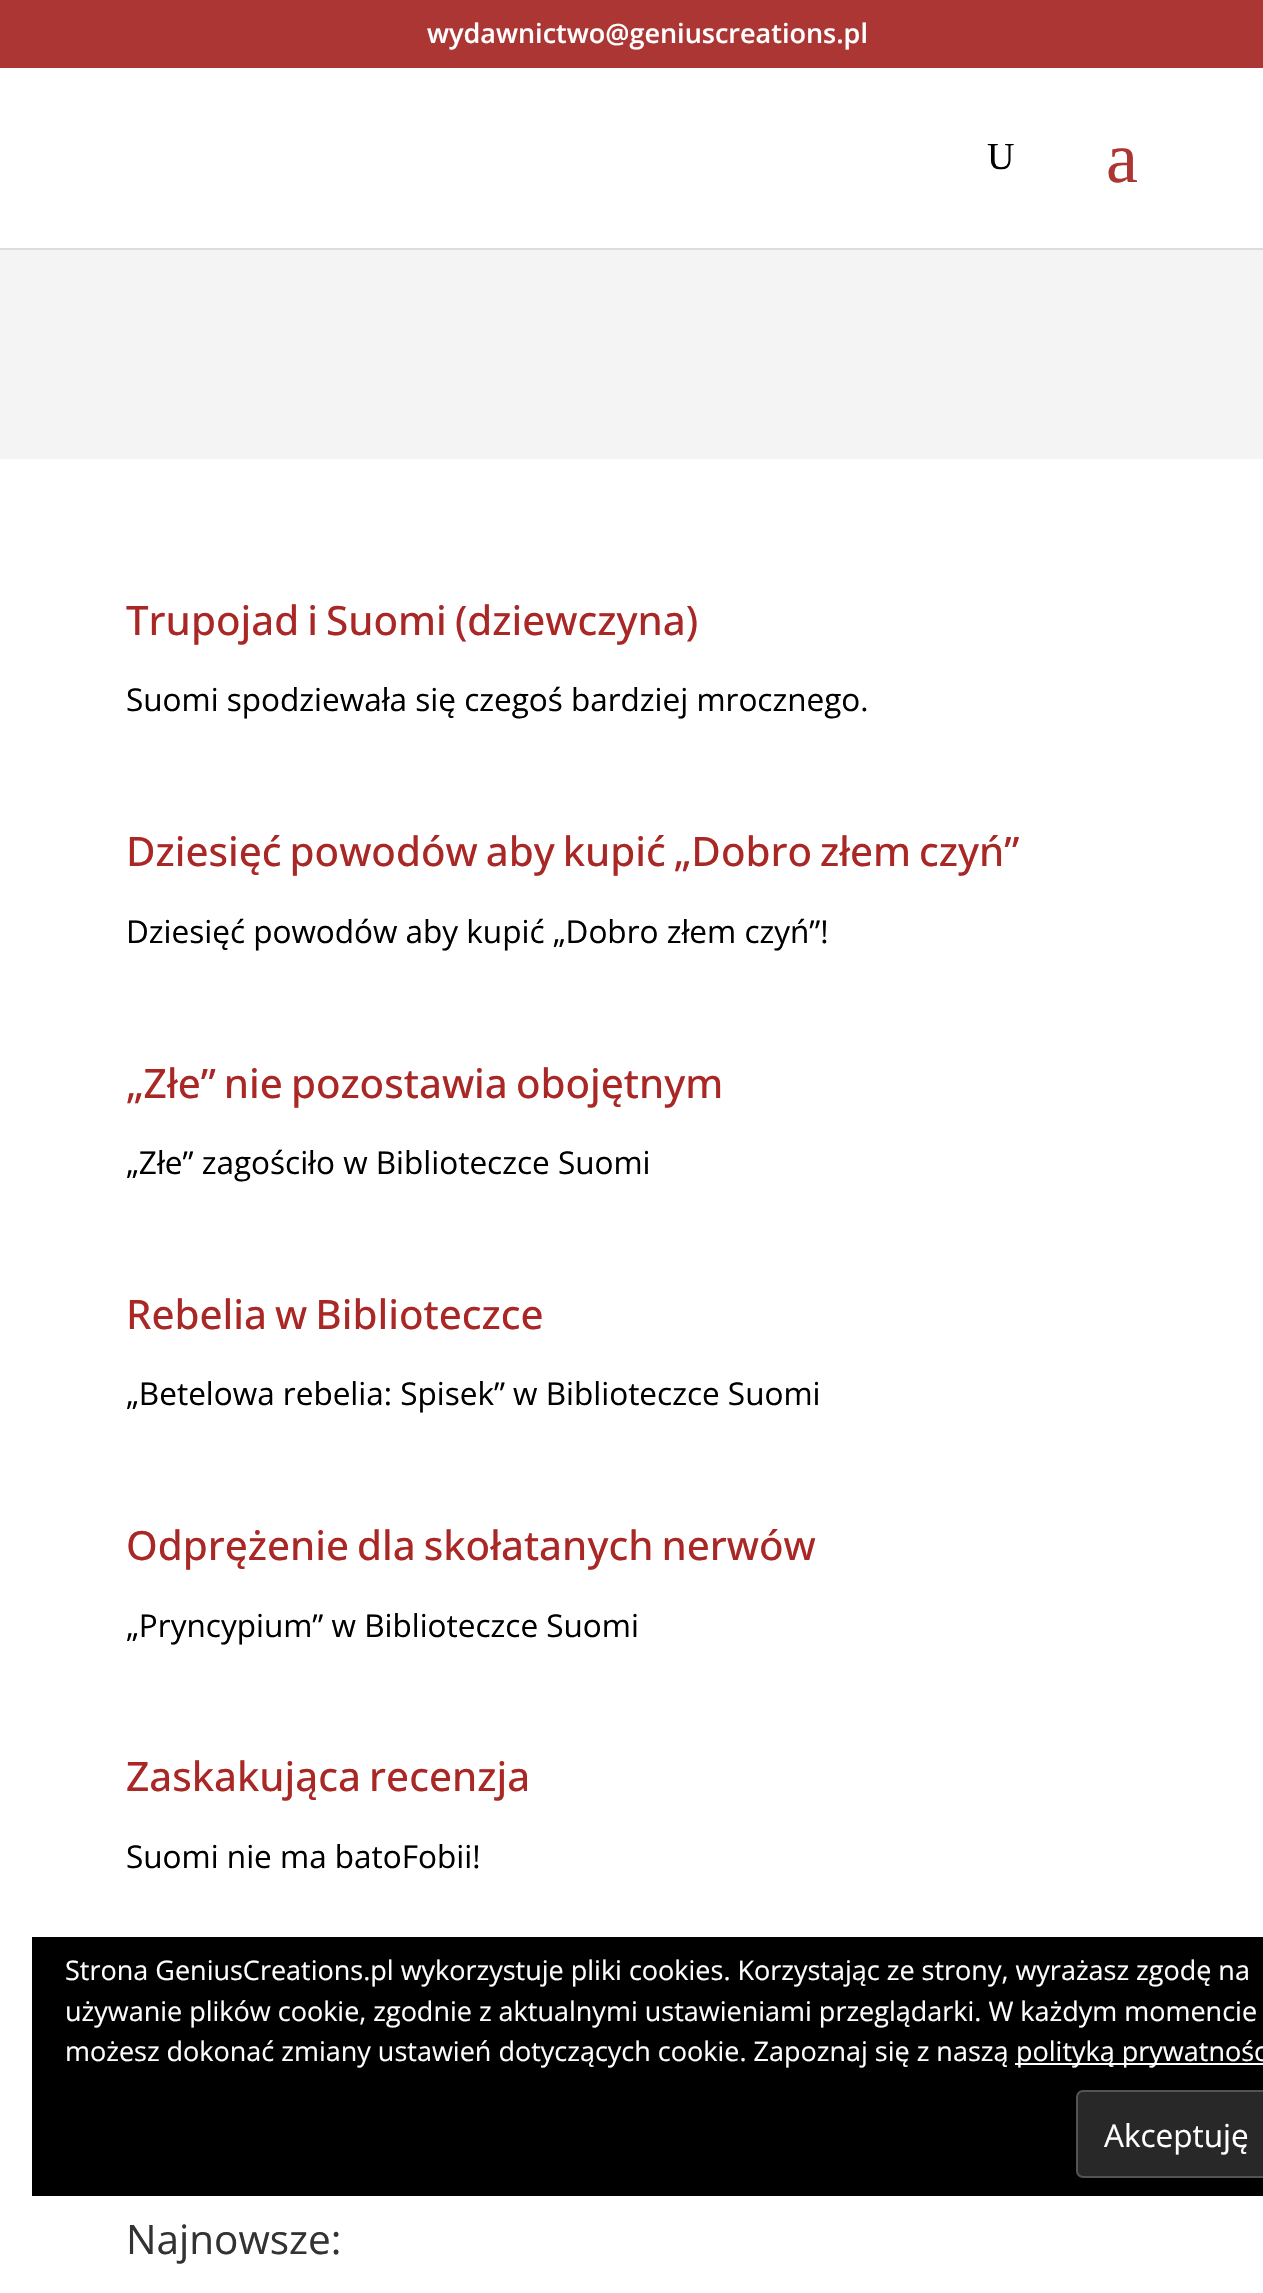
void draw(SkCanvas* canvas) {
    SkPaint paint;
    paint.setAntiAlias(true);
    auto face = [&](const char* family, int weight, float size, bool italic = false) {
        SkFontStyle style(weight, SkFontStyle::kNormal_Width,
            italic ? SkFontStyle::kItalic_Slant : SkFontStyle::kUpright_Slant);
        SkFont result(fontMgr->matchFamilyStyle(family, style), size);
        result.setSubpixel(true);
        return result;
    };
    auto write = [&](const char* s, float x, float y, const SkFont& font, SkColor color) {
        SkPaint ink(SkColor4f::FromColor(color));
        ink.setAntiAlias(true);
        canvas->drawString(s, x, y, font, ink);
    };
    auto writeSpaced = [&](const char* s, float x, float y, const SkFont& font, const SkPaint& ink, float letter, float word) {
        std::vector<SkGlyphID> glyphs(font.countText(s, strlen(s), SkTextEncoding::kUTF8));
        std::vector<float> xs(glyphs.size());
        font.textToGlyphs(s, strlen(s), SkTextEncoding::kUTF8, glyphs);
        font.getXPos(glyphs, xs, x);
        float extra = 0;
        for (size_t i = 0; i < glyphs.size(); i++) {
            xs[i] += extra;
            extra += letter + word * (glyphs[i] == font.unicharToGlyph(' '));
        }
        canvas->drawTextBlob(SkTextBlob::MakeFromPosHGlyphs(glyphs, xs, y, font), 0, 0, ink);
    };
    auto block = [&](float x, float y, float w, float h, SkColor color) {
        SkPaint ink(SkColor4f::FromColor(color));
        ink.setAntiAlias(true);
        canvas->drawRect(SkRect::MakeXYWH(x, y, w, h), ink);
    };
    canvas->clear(SkColorSetRGB(244, 244, 244));
    block(0, 0, 1263, 68, SkColorSetRGB(172, 54, 52));
    auto kFont1 = face("Open Sans", 600, 27);
    write("wydawnictwo@geniuscreations.pl", 427, 43, kFont1, SK_ColorWHITE);
    paint.setColor(SkColorSetRGB(220, 220, 220));
    canvas->drawPath(SkPathBuilder().moveTo(0, 248).lineTo(0, 250).lineTo(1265, 250).lineTo(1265, 70).lineTo(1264, 70).lineTo(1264, 248).close().detach(), paint);
    block(0, 68, 1263, 180, SK_ColorWHITE);
    auto kFont2 = face("Liberation Serif", 400, 38);
    write("U", 987, 169, kFont2, SK_ColorBLACK);
    auto kFont3 = face("Liberation Serif", 400, 72);
    write("a", 1106, 182, kFont3, SkColorSetRGB(172, 54, 52));
    block(0, 459, 1263, 1834, SK_ColorWHITE);
    auto kFont4 = face("Open Sans", 500, 40.5f);
    paint.setColor(SkColorSetRGB(169, 39, 37));
    writeSpaced("Trupojad i Suomi (dziewczyna)", 126, 635, kFont4, paint, 0, -2.5f);
    auto kFont5 = face("Open Sans", 400, 31.5f);
    write("Suomi spodziewała się czegoś bardziej mrocznego.", 126, 711, kFont5, SK_ColorBLACK);
    writeSpaced("Dziesięć powodów aby kupić „Dobro złem czyń”", 126, 866, kFont4, paint, 0, -2.5f);
    write("Dziesięć powodów aby kupić „Dobro złem czyń”!", 126, 943, kFont5, SK_ColorBLACK);
    writeSpaced("„Złe” nie pozostawia obojętnym", 126, 1098, kFont4, paint, 0, -2.5f);
    write("„Złe” zagościło w Biblioteczce Suomi", 126, 1174, kFont5, SK_ColorBLACK);
    writeSpaced("Rebelia w Biblioteczce", 126, 1329, kFont4, paint, 0, -2.5f);
    write("„Betelowa rebelia: Spisek” w Biblioteczce Suomi", 126, 1405, kFont5, SK_ColorBLACK);
    writeSpaced("Odprężenie dla skołatanych nerwów", 126, 1560, kFont4, paint, 0, -2.5f);
    write("„Pryncypium” w Biblioteczce Suomi", 126, 1637, kFont5, SK_ColorBLACK);
    writeSpaced("Zaskakująca recenzja", 126, 1791, kFont4, paint, 0, -2.5f);
    write("Suomi nie ma batoFobii!", 126, 1868, kFont5, SK_ColorBLACK);
    block(32, 1937, 1231, 259, SK_ColorBLACK);
    auto kFont6 = face("Open Sans", 400, 27);
    write("Strona GeniusCreations.pl wykorzystuje pliki cookies. Korzystając ze strony, wyrażasz zgodę na", 65, 1980, kFont6, SK_ColorWHITE);
    write("używanie plików cookie, zgodnie z aktualnymi ustawieniami przeglądarki. W każdym momencie", 65, 2021, kFont6, SK_ColorWHITE);
    write("możesz dokonać zmiany ustawień dotyczących cookie. Zapoznaj się z naszą", 65, 2061, kFont6, SK_ColorWHITE);
    block(1015, 2063, 248, 2, SK_ColorWHITE);
    write("polityką prywatnośc", 1016, 2061, kFont6, SK_ColorWHITE);
    paint.setColor(SkColorSetRGB(40, 40, 40));
    canvas->drawRoundRect(SkRect::MakeXYWH(1077, 2091, 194, 86), 6, 6, paint);
    paint.setStyle(SkPaint::kStroke_Style);
    paint.setStrokeWidth(2);
    paint.setColor(SkColorSetRGB(83, 83, 83));
    canvas->drawRoundRect(SkRect::MakeXYWH(1077, 2091, 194, 86), 6, 6, paint);
    write("Akceptuję", 1104, 2147, kFont5, SK_ColorWHITE);
    auto kFont7 = face("Open Sans", 400, 40.5f);
    write("Najnowsze:", 126, 2254, kFont7, SkColorSetRGB(51, 51, 51));
}
